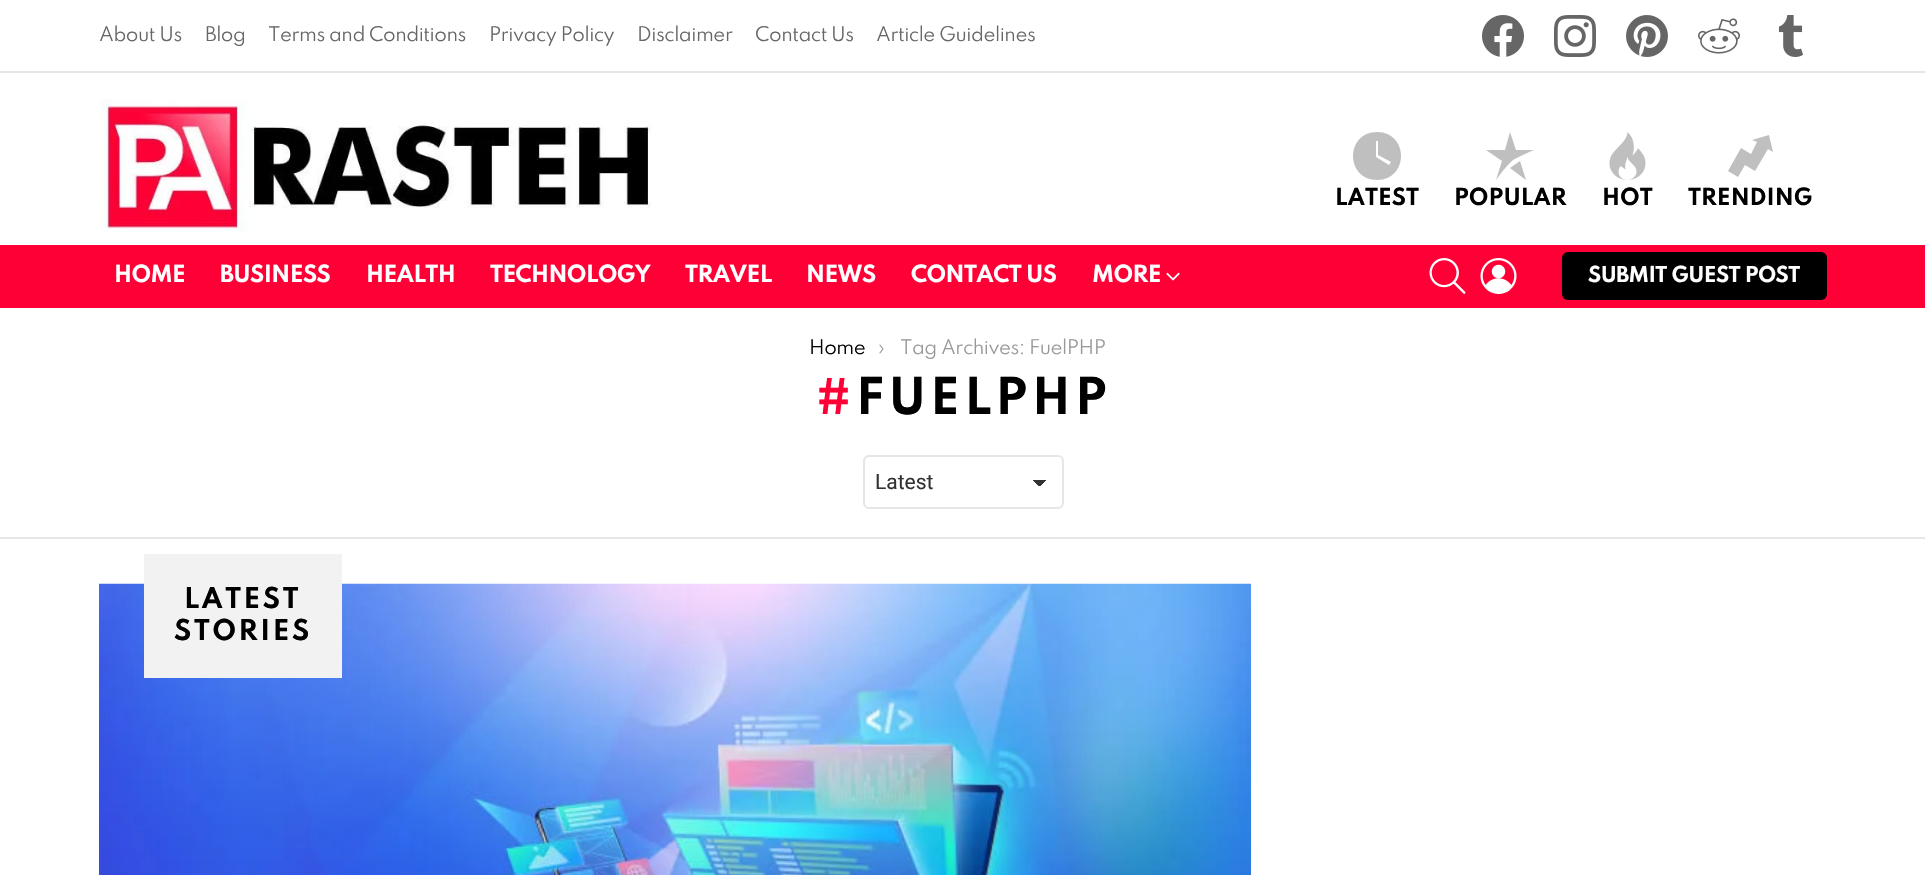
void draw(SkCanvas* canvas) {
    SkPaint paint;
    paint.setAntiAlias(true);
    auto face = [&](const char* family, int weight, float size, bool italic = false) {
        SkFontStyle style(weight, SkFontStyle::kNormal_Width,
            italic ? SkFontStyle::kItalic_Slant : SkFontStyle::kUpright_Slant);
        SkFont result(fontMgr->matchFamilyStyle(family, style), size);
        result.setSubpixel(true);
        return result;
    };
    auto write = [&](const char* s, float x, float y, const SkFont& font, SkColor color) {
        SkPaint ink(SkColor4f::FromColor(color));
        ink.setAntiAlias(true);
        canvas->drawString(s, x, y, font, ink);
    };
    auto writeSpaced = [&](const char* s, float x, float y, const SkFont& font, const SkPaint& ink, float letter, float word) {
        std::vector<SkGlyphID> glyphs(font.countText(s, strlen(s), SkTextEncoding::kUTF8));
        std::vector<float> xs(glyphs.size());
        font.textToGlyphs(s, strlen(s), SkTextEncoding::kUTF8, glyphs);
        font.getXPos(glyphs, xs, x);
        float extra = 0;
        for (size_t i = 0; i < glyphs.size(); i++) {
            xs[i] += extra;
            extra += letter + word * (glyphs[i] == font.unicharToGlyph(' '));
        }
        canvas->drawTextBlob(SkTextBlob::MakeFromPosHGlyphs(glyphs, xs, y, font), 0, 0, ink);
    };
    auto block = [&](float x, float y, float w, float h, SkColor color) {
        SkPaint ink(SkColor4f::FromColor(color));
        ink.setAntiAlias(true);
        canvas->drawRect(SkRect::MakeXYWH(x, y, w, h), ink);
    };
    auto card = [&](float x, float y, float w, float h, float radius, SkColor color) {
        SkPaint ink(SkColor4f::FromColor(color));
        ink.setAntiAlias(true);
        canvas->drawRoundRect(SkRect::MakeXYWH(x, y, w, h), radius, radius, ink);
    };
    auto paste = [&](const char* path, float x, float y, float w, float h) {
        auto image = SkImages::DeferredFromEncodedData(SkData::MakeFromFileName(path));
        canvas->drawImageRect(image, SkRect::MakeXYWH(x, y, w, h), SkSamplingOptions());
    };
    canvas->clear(SK_ColorWHITE);
    auto kFont1 = face("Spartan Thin", 400, 18);
    paint.setColor(SkColorSetRGB(102, 102, 102));
    writeSpaced("About Us", 99, 41, kFont1, paint, -0.5f, 0);
    writeSpaced("Blog", 205, 41, kFont1, paint, -0.5f, 0);
    writeSpaced("Terms and Conditions", 268, 41, kFont1, paint, -0.5f, 0);
    writeSpaced("Privacy Policy", 489, 41, kFont1, paint, -0.5f, 0);
    writeSpaced("Disclaimer", 637, 41, kFont1, paint, -0.5f, 0);
    writeSpaced("Contact Us", 755, 41, kFont1, paint, -0.5f, 0);
    writeSpaced("Article Guidelines", 876, 41, kFont1, paint, -0.5f, 0);
    paste("pic1.png", 1482, 15, 42, 42);
    paste("pic2.png", 1554, 15, 42, 42);
    paste("pic3.png", 1626, 15, 42, 42);
    paste("pic4.png", 1698, 18, 42, 36);
    paste("pic5.png", 1778, 15, 25, 42);
    block(0, 71, 1925, 2, SkColorSetRGB(230, 230, 230));
    paste("pic6.png", 101, 99, 551, 133);
    paint.setColor(SkColorSetRGB(191, 191, 191));
    canvas->drawPath(SkPathBuilder().moveTo(1377, 132).cubicTo(1345, 132, 1345, 180, 1377, 180).cubicTo(1409, 180, 1409, 132, 1377, 132).close().moveTo(1389, 165).lineTo(1376, 157).lineTo(1376, 141).lineTo(1378, 141).lineTo(1378, 155).lineTo(1391, 162).close().detach(), paint);
    auto kFont2 = face("Spartan Thin", 700, 21);
    write("LATEST", 1335, 205, kFont2, SK_ColorBLACK);
    canvas->drawPath(SkPathBuilder().moveTo(1513, 160).cubicTo(1520, 156, 1527, 153, 1534, 150).lineTo(1516, 150).lineTo(1510, 132).lineTo(1505, 150).lineTo(1486, 150).lineTo(1502, 161).lineTo(1496, 180).cubicTo(1501, 173, 1506, 166, 1513, 160).close().moveTo(1510, 168).lineTo(1526, 180).lineTo(1520, 161).close().detach(), paint);
    write("POPULAR", 1454, 205, kFont2, SK_ColorBLACK);
    paste("pic7.png", 1609, 132, 37, 48);
    write("HOT", 1602, 205, kFont2, SK_ColorBLACK);
    canvas->drawPath(SkPathBuilder().moveTo(1751, 154).lineTo(1757, 142).lineTo(1752, 140).lineTo(1769, 135).lineTo(1773, 152).lineTo(1768, 149).lineTo(1755, 171).lineTo(1745, 165).lineTo(1738, 177).lineTo(1728, 171).lineTo(1741, 148).close().detach(), paint);
    write("TRENDING", 1688, 205, kFont2, SK_ColorBLACK);
    block(0, 245, 1925, 63, SkColorSetRGB(255, 0, 54));
    paint.setColor(SK_ColorWHITE);
    writeSpaced("HOME", 114, 282, kFont2, paint, -0.6f, 0);
    writeSpaced("BUSINESS", 220, 282, kFont2, paint, -0.6f, 0);
    writeSpaced("HEALTH", 366, 282, kFont2, paint, -0.6f, 0);
    writeSpaced("TECHNOLOGY", 490, 282, kFont2, paint, -0.6f, 0);
    writeSpaced("TRAVEL", 685, 282, kFont2, paint, -0.6f, 0);
    writeSpaced("NEWS", 806, 282, kFont2, paint, -0.6f, 0);
    writeSpaced("CONTACT US", 911, 282, kFont2, paint, -0.6f, 0);
    writeSpaced("MORE", 1092, 282, kFont2, paint, -0.6f, 0);
    paste("pic8.png", 1166, 272, 14, 9);
    paste("pic9.png", 1429, 258, 37, 36);
    paste("pic10.png", 1480, 258, 37, 36);
    card(1562, 252, 265, 48, 6, SK_ColorBLACK);
    auto kFont3 = face("Spartan Thin", 700, 19.5f);
    writeSpaced("SUBMIT GUEST POST", 1588, 282, kFont3, paint, -0.6f, 0);
    paint.setColor(SK_ColorBLACK);
    writeSpaced("Home", 809, 354, kFont1, paint, -0.5f, 0);
    paint.setColor(SkColorSetRGB(153, 153, 153));
    writeSpaced("›", 878, 354, kFont1, paint, -0.5f, 0);
    writeSpaced("Tag Archives: FuelPHP", 900, 354, kFont1, paint, -0.5f, 0);
    auto kFont4 = face("Spartan Thin", 700, 45);
    paint.setColor(SkColorSetRGB(255, 0, 54));
    writeSpaced("#", 816, 414, kFont4, paint, 4.5f, 0);
    paint.setColor(SK_ColorBLACK);
    writeSpaced("FUELPHP", 856, 414, kFont4, paint, 4.5f, 0);
    {
        const SkColor colors[] = {SkColorSetRGB(51, 51, 51), SK_ColorWHITE};
        const float stops[] = {0.5f, 0.5f};
        const SkPoint ends[] = {{1040, 480}, {1047, 486}};
        paint.setShader(SkGradientShader::MakeLinear(ends, colors, stops, 2, SkTileMode::kClamp));
        paint.setAlpha(255);
    }
    canvas->drawRect(SkRect::MakeXYWH(1040, 480, 7, 6), paint);
    {
        const SkColor colors[] = {SK_ColorWHITE, SkColorSetRGB(51, 51, 51)};
        const float stops[] = {0.5f, 0.5f};
        const SkPoint ends[] = {{1032, 486}, {1039, 480}};
        paint.setShader(SkGradientShader::MakeLinear(ends, colors, stops, 2, SkTileMode::kClamp));
        paint.setAlpha(255);
    }
    canvas->drawRect(SkRect::MakeXYWH(1032, 480, 8, 6), paint);
    paint.setStyle(SkPaint::kStroke_Style);
    paint.setStrokeWidth(2);
    paint.setShader(nullptr);
    paint.setColor(SkColorSetRGB(230, 230, 230));
    canvas->drawRoundRect(SkRect::MakeXYWH(864, 456, 199, 52), 5, 5, paint);
    auto kFont5 = face("Roboto", 400, 21);
    write("Latest", 875, 489, kFont5, SkColorSetRGB(51, 51, 51));
    block(0, 537, 1925, 2, SkColorSetRGB(230, 230, 230));
    paste("pic11.png", 99, 583, 1152, 292);
    block(144, 554, 198, 124, SkColorSetRGB(242, 242, 242));
    auto kFont6 = face("Spartan Thin", 700, 25.5f);
    paint.setStyle(SkPaint::kFill_Style);
    paint.setColor(SK_ColorBLACK);
    writeSpaced("LATEST", 184, 608, kFont6, paint, 2.5f, 0);
    writeSpaced("STORIES", 174, 640, kFont6, paint, 2.5f, 0);
}
